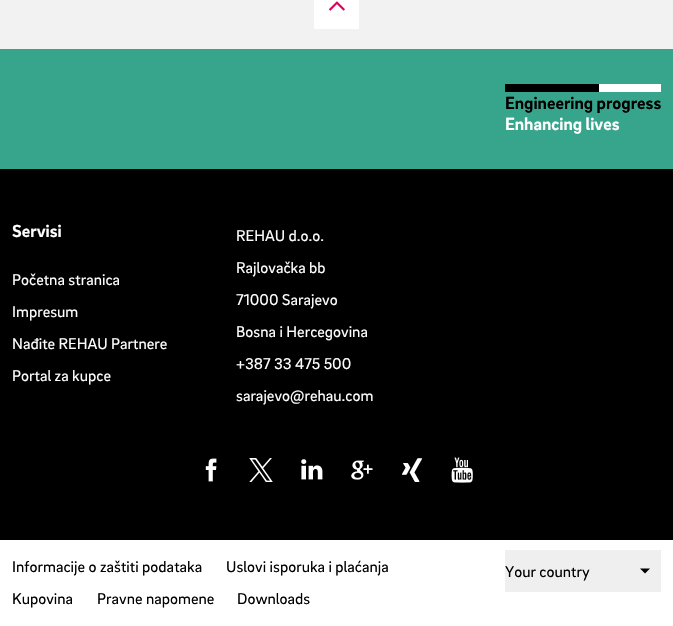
void draw(SkCanvas* canvas) {
    SkPaint paint;
    paint.setAntiAlias(true);
    auto face = [&](const char* family, int weight, float size, bool italic = false) {
        SkFontStyle style(weight, SkFontStyle::kNormal_Width,
            italic ? SkFontStyle::kItalic_Slant : SkFontStyle::kUpright_Slant);
        SkFont result(fontMgr->matchFamilyStyle(family, style), size);
        result.setSubpixel(true);
        return result;
    };
    auto write = [&](const char* s, float x, float y, const SkFont& font, SkColor color) {
        SkPaint ink(SkColor4f::FromColor(color));
        ink.setAntiAlias(true);
        canvas->drawString(s, x, y, font, ink);
    };
    auto block = [&](float x, float y, float w, float h, SkColor color) {
        SkPaint ink(SkColor4f::FromColor(color));
        ink.setAntiAlias(true);
        canvas->drawRect(SkRect::MakeXYWH(x, y, w, h), ink);
    };
    auto paste = [&](const char* path, float x, float y, float w, float h) {
        auto image = SkImages::DeferredFromEncodedData(SkData::MakeFromFileName(path));
        canvas->drawImageRect(image, SkRect::MakeXYWH(x, y, w, h), SkSamplingOptions());
    };
    canvas->clear(SK_ColorWHITE);
    block(0, 0, 673, 49, SkColorSetRGB(242, 242, 242));
    block(314, 0, 45, 29, SK_ColorWHITE);
    paste("pic1.png", 329, 1, 16, 10);
    block(0, 49, 673, 120, SkColorSetRGB(55, 165, 140));
    block(505, 84, 94, 8, SK_ColorBLACK);
    block(599, 84, 62, 8, SK_ColorWHITE);
    auto kFont1 = face("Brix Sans", 700, 18);
    write("Engineering progress", 505, 109, kFont1, SK_ColorBLACK);
    write("Enhancing lives", 505, 130, kFont1, SK_ColorWHITE);
    block(0, 169, 673, 371, SK_ColorBLACK);
    write("Servisi", 12, 237, kFont1, SK_ColorWHITE);
    auto kFont2 = face("Brix Sans", 400, 16);
    write("Početna stranica", 12, 285, kFont2, SK_ColorWHITE);
    write("Impresum", 12, 317, kFont2, SK_ColorWHITE);
    write("Nađite REHAU Partnere", 12, 349, kFont2, SK_ColorWHITE);
    write("Portal za kupce", 12, 381, kFont2, SK_ColorWHITE);
    write("REHAU d.o.o.", 236, 241, kFont2, SK_ColorWHITE);
    write("Rajlovačka bb", 236, 273, kFont2, SK_ColorWHITE);
    write("71000 Sarajevo", 236, 305, kFont2, SK_ColorWHITE);
    write("Bosna i Hercegovina", 236, 337, kFont2, SK_ColorWHITE);
    write("+387 33 475 500", 236, 369, kFont2, SK_ColorWHITE);
    write("sarajevo@rehau.com", 236, 401, kFont2, SK_ColorWHITE);
    {
        const SkColor colors[] = {SK_ColorWHITE, SK_ColorBLACK};
        const float stops[] = {0.67f, 0.7f};
        paint.setShader(SkGradientShader::MakeRadial({211, 470}, 25, colors, stops, 2, SkTileMode::kClamp));
        paint.setAlpha(255);
    }
    canvas->drawRect(SkRect::MakeXYWH(194, 453, 34, 34), paint);
    paste("pic2.png", 194, 453, 34, 34);
    {
        const SkColor colors[] = {SK_ColorWHITE, SK_ColorBLACK};
        const float stops[] = {0.67f, 0.7f};
        paint.setShader(SkGradientShader::MakeRadial({261, 470}, 25, colors, stops, 2, SkTileMode::kClamp));
        paint.setAlpha(255);
    }
    canvas->drawRect(SkRect::MakeXYWH(244, 453, 34, 34), paint);
    paste("pic3.png", 244, 453, 34, 34);
    {
        const SkColor colors[] = {SK_ColorWHITE, SK_ColorBLACK};
        const float stops[] = {0.67f, 0.7f};
        paint.setShader(SkGradientShader::MakeRadial({312, 470}, 25, colors, stops, 2, SkTileMode::kClamp));
        paint.setAlpha(255);
    }
    canvas->drawRect(SkRect::MakeXYWH(295, 453, 34, 34), paint);
    paste("pic4.png", 295, 453, 34, 34);
    {
        const SkColor colors[] = {SK_ColorWHITE, SK_ColorBLACK};
        const float stops[] = {0.67f, 0.7f};
        paint.setShader(SkGradientShader::MakeRadial({362, 470}, 25, colors, stops, 2, SkTileMode::kClamp));
        paint.setAlpha(255);
    }
    canvas->drawRect(SkRect::MakeXYWH(345, 453, 34, 34), paint);
    paste("pic5.png", 345, 453, 34, 34);
    {
        const SkColor colors[] = {SK_ColorWHITE, SK_ColorBLACK};
        const float stops[] = {0.67f, 0.7f};
        paint.setShader(SkGradientShader::MakeRadial({412, 470}, 25, colors, stops, 2, SkTileMode::kClamp));
        paint.setAlpha(255);
    }
    canvas->drawRect(SkRect::MakeXYWH(395, 453, 34, 34), paint);
    paste("pic6.png", 395, 453, 34, 34);
    {
        const SkColor colors[] = {SK_ColorWHITE, SK_ColorBLACK};
        const float stops[] = {0.67f, 0.7f};
        paint.setShader(SkGradientShader::MakeRadial({462, 470}, 25, colors, stops, 2, SkTileMode::kClamp));
        paint.setAlpha(255);
    }
    canvas->drawRect(SkRect::MakeXYWH(445, 453, 34, 34), paint);
    paste("pic7.png", 445, 453, 34, 34);
    write("Informacije o zaštiti podataka", 12, 572, kFont2, SK_ColorBLACK);
    write("Uslovi isporuka i plaćanja", 226, 572, kFont2, SK_ColorBLACK);
    write("Kupovina", 12, 604, kFont2, SK_ColorBLACK);
    write("Pravne napomene", 97, 604, kFont2, SK_ColorBLACK);
    write("Downloads", 237, 604, kFont2, SK_ColorBLACK);
    block(505, 550, 156, 42, SkColorSetRGB(239, 239, 239));
    write("Your country", 505, 577, kFont2, SK_ColorBLACK);
    paint.setShader(nullptr);
    paint.setColor(SK_ColorBLACK);
    canvas->drawPath(SkPathBuilder().moveTo(640, 568.5f).lineTo(650, 568.5f).lineTo(645, 573.5f).close().detach(), paint);
}
